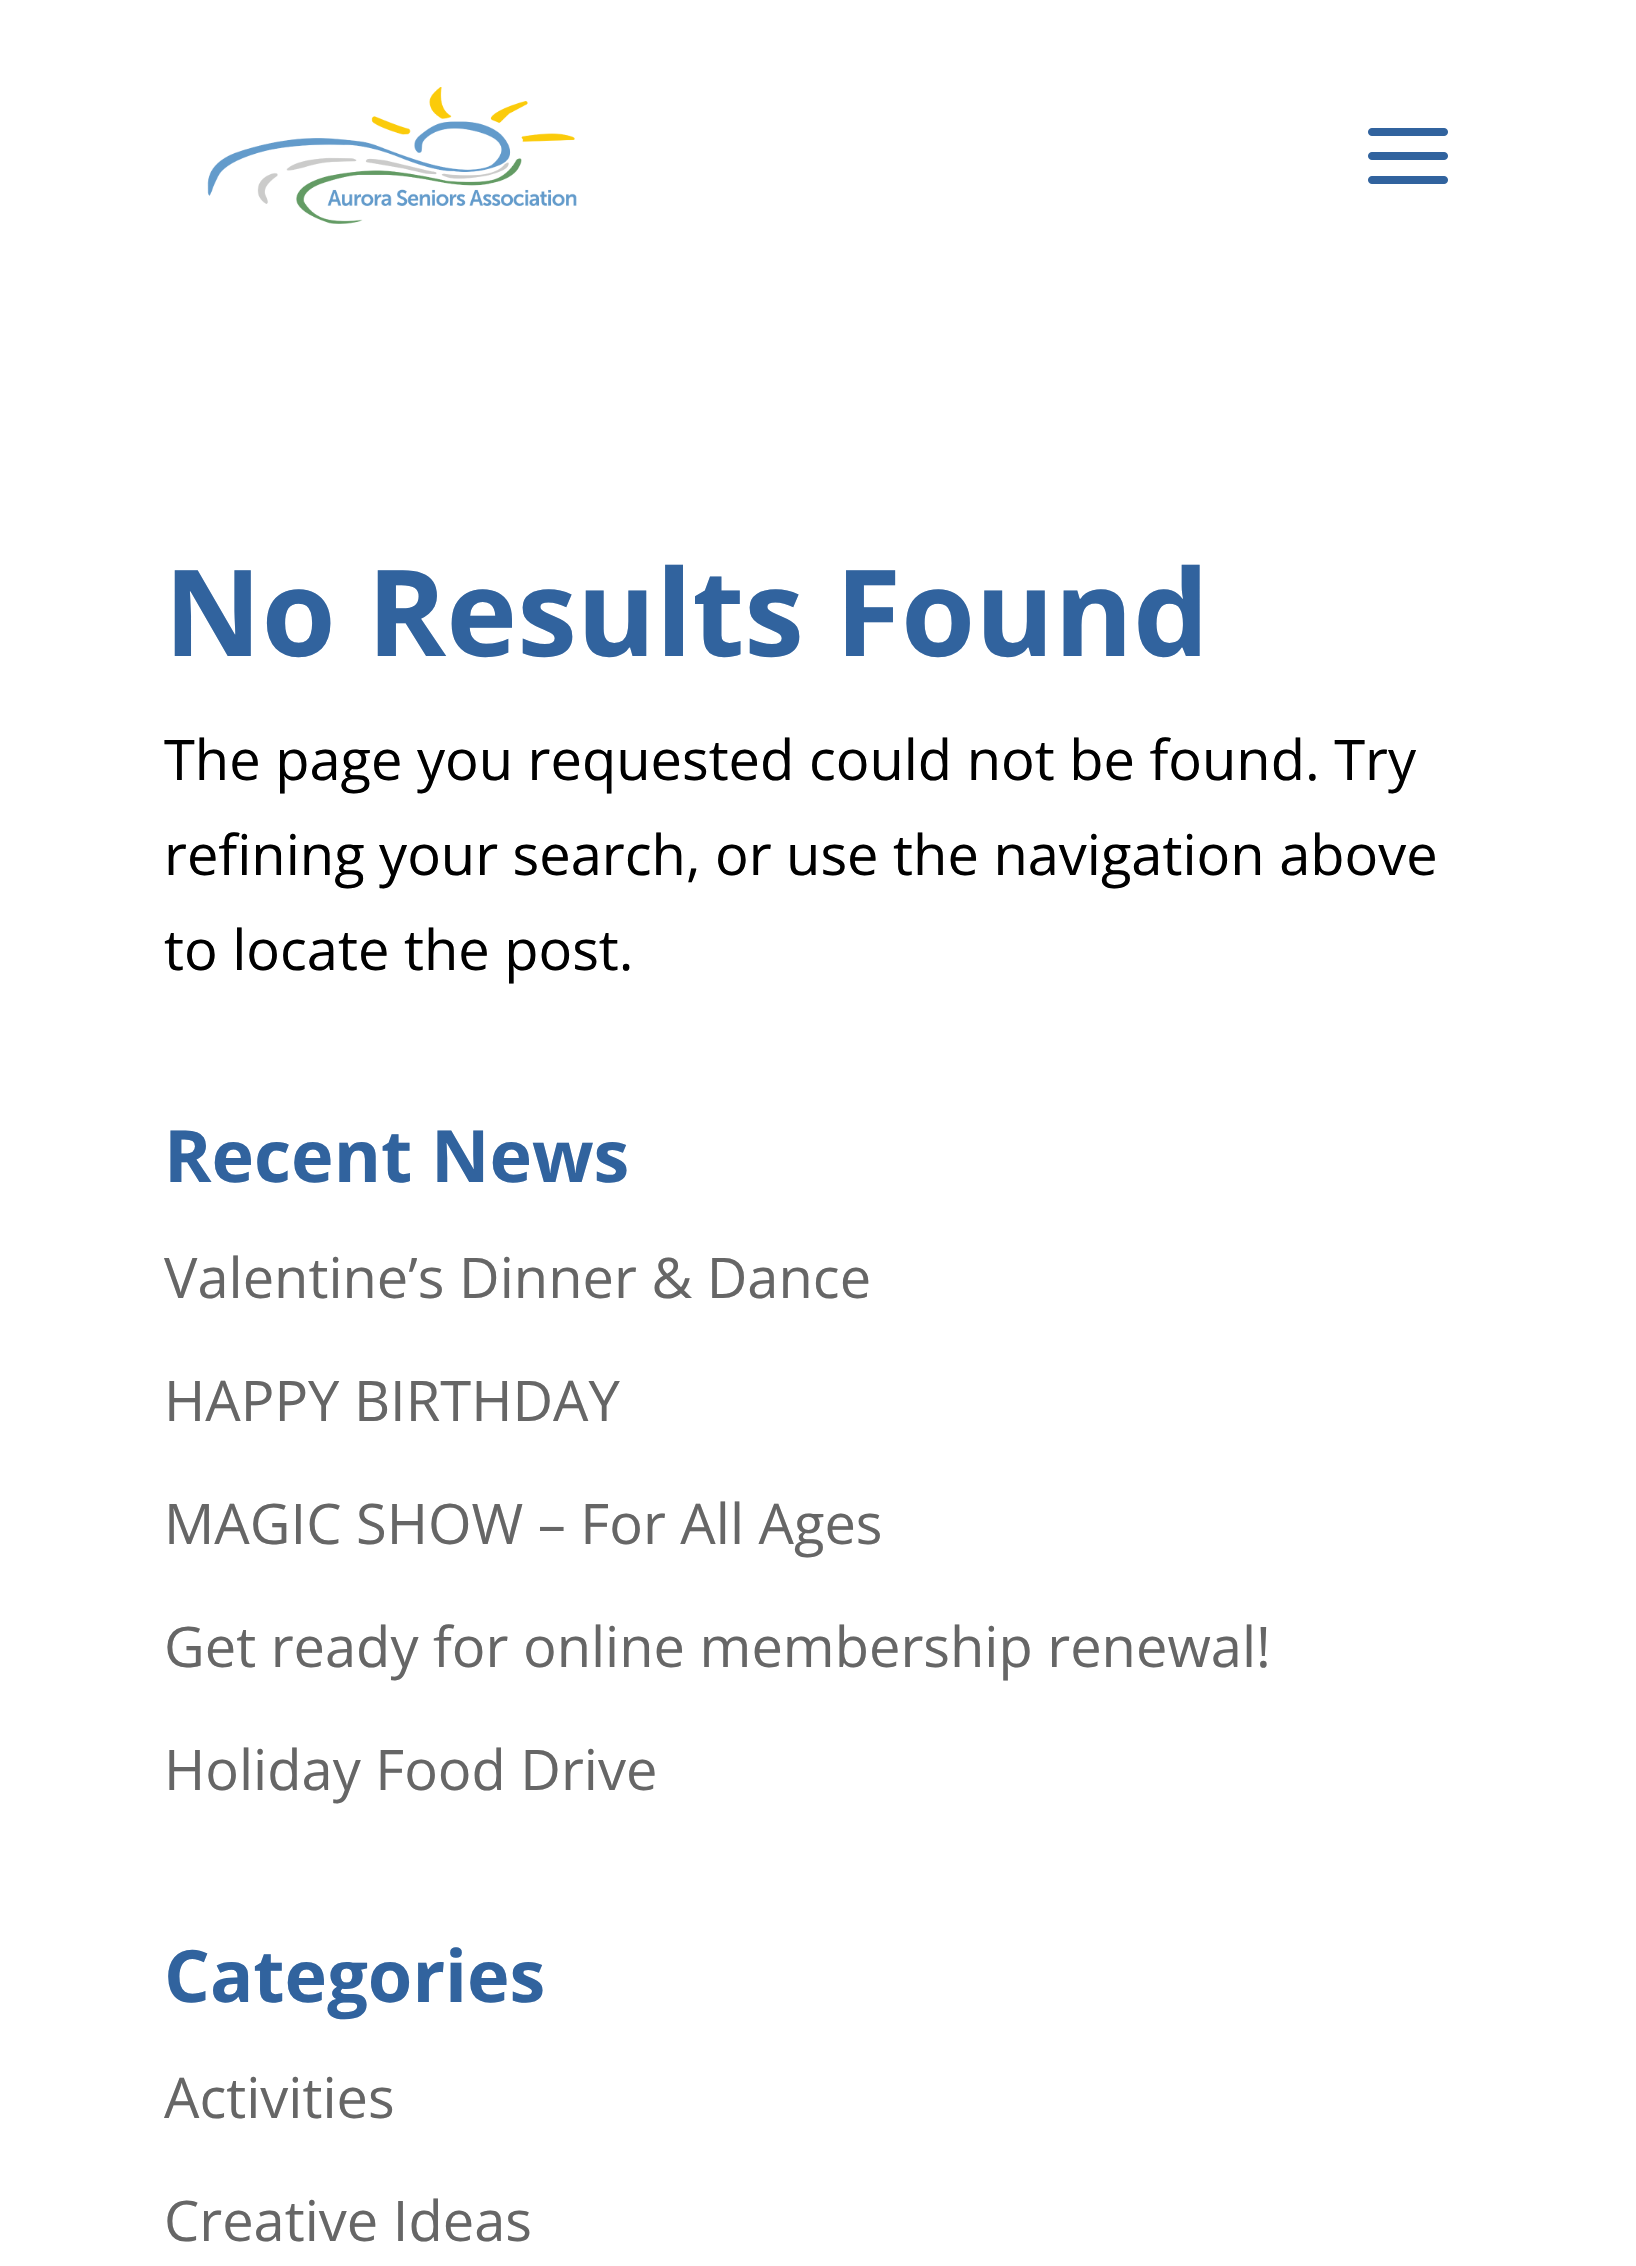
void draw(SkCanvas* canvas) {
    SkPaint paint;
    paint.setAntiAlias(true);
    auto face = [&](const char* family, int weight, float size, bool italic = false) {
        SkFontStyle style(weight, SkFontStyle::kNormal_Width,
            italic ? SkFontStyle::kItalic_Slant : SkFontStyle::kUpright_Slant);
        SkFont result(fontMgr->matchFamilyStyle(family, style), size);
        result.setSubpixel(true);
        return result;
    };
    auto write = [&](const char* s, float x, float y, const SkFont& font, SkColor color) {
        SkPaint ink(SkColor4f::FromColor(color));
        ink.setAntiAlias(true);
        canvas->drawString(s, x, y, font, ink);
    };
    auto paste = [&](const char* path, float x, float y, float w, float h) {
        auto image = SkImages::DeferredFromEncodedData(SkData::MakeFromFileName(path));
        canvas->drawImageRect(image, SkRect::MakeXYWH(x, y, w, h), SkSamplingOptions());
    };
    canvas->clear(SK_ColorWHITE);
    paste("pic1.png", 207, 87, 370, 137);
    paste("pic2.png", 1368, 128, 80, 56);
    auto kFont1 = face("Open Sans", 700, 120);
    write("No Results Found", 164, 656, kFont1, SkColorSetRGB(49, 99, 158));
    auto kFont2 = face("Open Sans", 400, 56);
    write("The page you requested could not be found. Try", 164, 780, kFont2, SK_ColorBLACK);
    write("refining your search, or use the navigation above", 164, 875, kFont2, SK_ColorBLACK);
    write("to locate the post.", 164, 970, kFont2, SK_ColorBLACK);
    auto kFont3 = face("Open Sans", 700, 72);
    write("Recent News", 164, 1182, kFont3, SkColorSetRGB(49, 99, 158));
    write("Valentine’s Dinner & Dance", 164, 1298, kFont2, SkColorSetRGB(102, 102, 102));
    write("HAPPY BIRTHDAY", 164, 1421, kFont2, SkColorSetRGB(102, 102, 102));
    write("MAGIC SHOW – For All Ages", 164, 1544, kFont2, SkColorSetRGB(102, 102, 102));
    write("Get ready for online membership renewal!", 164, 1667, kFont2, SkColorSetRGB(102, 102, 102));
    write("Holiday Food Drive", 164, 1790, kFont2, SkColorSetRGB(102, 102, 102));
    write("Categories", 164, 2002, kFont3, SkColorSetRGB(49, 99, 158));
    write("Activities", 164, 2118, kFont2, SkColorSetRGB(102, 102, 102));
    write("Creative Ideas", 164, 2241, kFont2, SkColorSetRGB(102, 102, 102));
}
